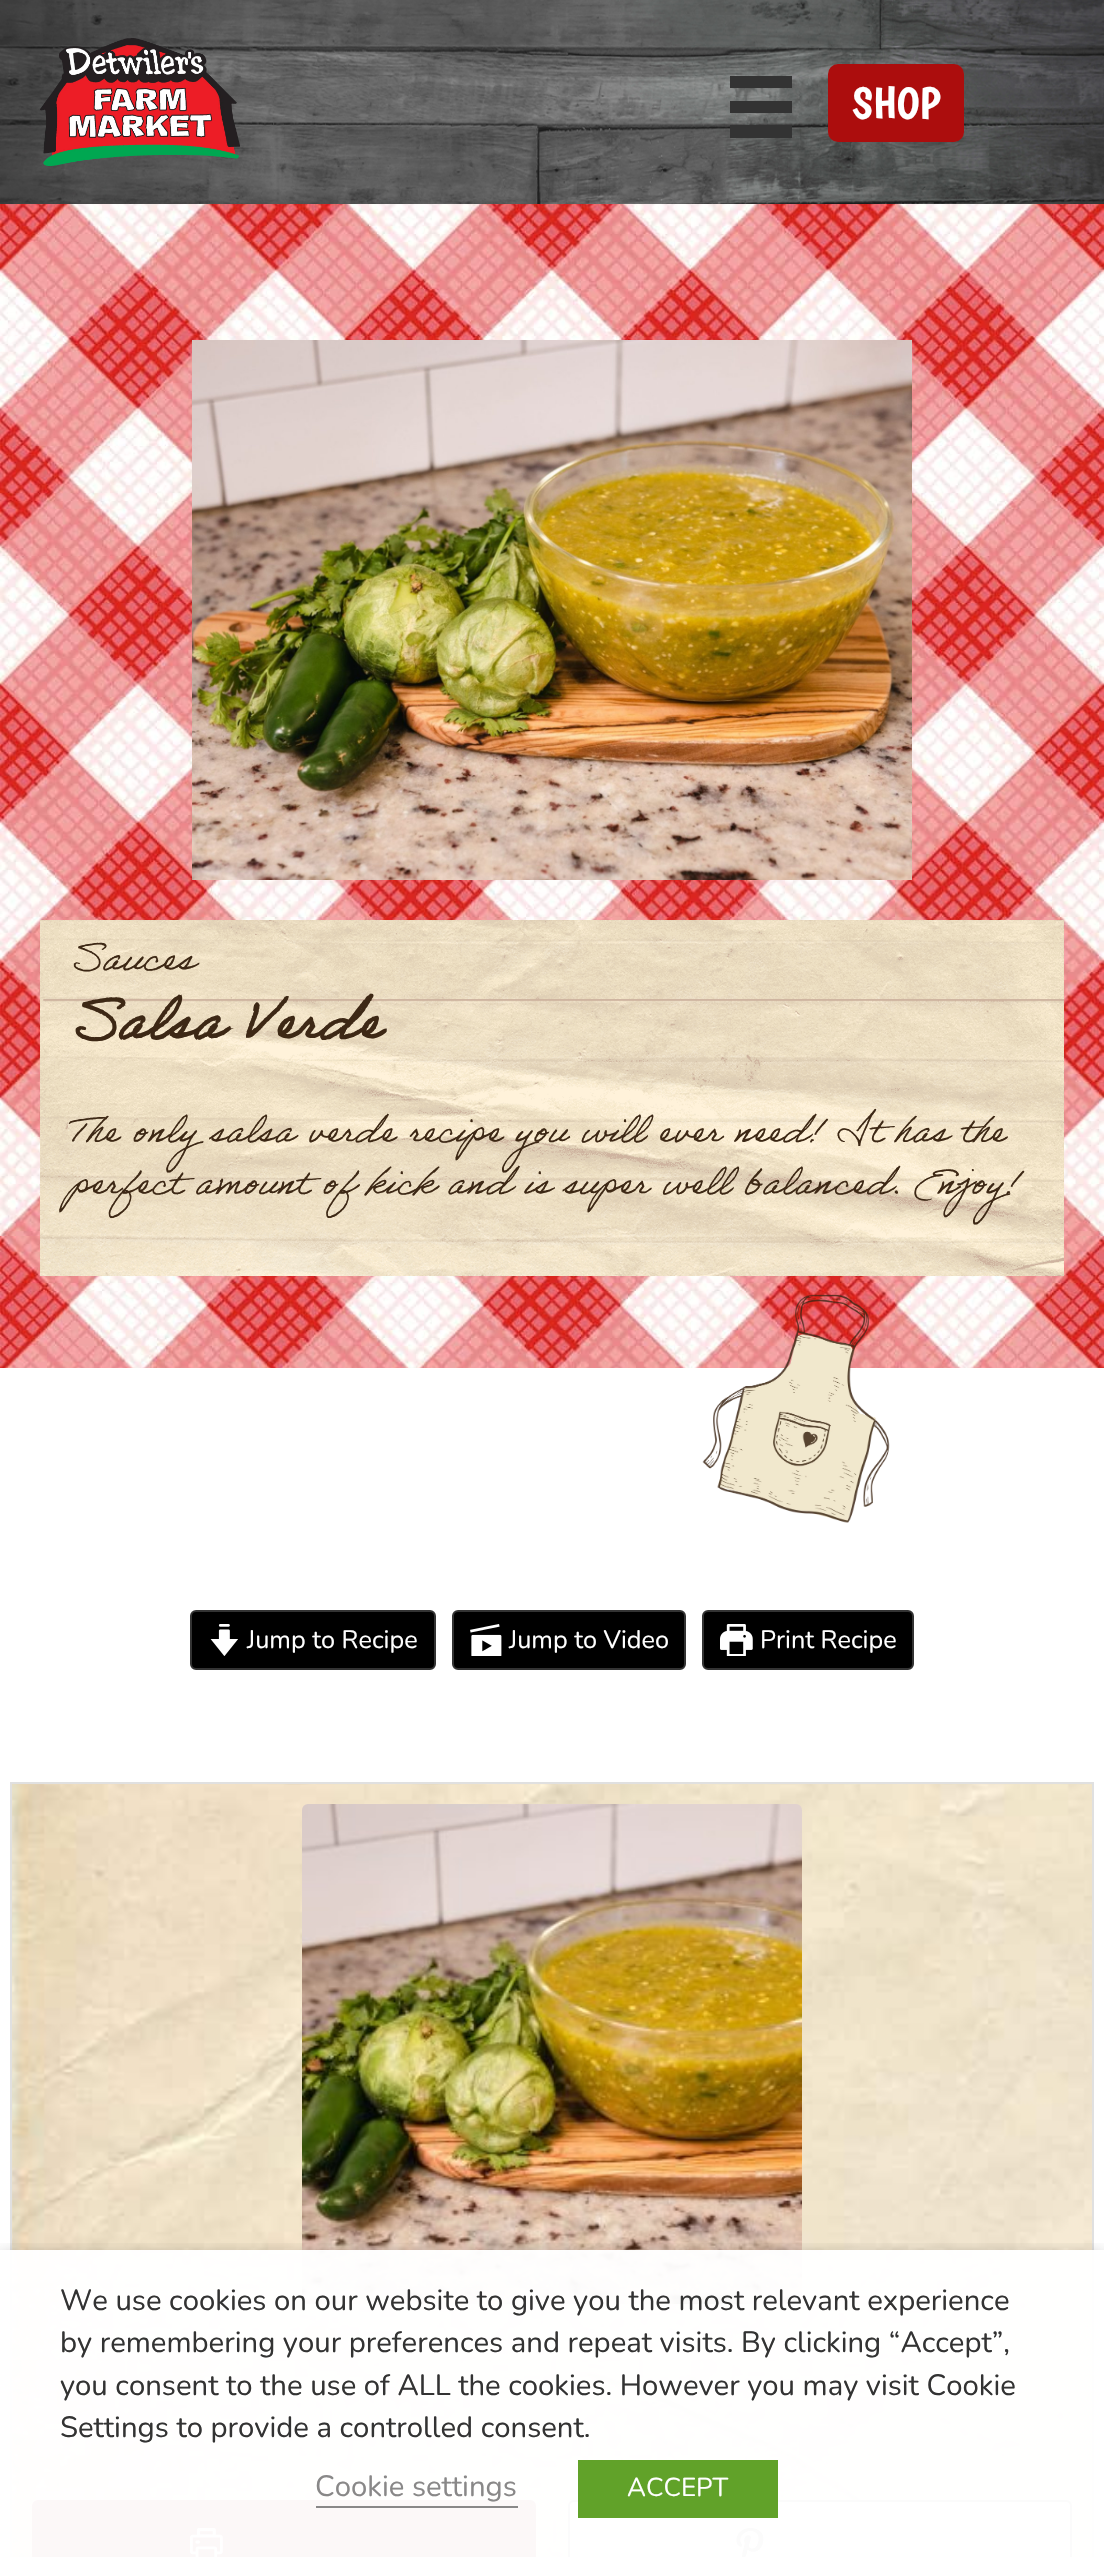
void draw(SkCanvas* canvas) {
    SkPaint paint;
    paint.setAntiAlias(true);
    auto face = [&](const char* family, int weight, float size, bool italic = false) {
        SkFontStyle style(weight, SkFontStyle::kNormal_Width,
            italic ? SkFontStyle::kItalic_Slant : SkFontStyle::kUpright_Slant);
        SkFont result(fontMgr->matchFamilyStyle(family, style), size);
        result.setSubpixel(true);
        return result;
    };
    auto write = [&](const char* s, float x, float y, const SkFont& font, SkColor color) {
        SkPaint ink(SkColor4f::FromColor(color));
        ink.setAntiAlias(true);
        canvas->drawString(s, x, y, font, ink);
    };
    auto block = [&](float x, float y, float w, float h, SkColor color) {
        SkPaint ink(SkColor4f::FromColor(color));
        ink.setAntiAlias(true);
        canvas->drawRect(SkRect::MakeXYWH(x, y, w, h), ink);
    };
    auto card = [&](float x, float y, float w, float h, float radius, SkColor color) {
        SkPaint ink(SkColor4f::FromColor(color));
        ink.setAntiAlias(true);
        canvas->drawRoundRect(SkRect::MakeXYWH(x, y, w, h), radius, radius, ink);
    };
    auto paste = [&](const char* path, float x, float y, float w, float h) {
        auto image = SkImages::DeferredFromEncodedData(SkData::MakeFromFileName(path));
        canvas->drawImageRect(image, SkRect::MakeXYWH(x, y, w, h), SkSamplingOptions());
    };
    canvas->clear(SK_ColorWHITE);
    paste("pic1.png", 0, 0, 1104, 204);
    paste("pic2.png", 40, 38, 200, 128);
    block(730, 76, 62, 12, SkColorSetRGB(51, 51, 51));
    block(730, 101, 62, 12, SkColorSetRGB(51, 51, 51));
    block(730, 125, 62, 13, SkColorSetRGB(51, 51, 51));
    card(828, 64, 136, 78, 10, SkColorSetRGB(172, 13, 13));
    auto kFont1 = face("Boogaloo", 400, 44);
    write("SHOP", 852, 118, kFont1, SK_ColorWHITE);
    paste("pic3.png", 0, 204, 1104, 1164);
    paste("pic4.png", 192, 340, 720, 540);
    paste("pic5.png", 40, 920, 1024, 356);
    auto kFont2 = face("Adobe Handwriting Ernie", 400, 38);
    write("Sauces", 70, 970, kFont2, SkColorSetRGB(61, 40, 21));
    auto kFont3 = face("Adobe Handwriting Ernie", 700, 56);
    write("Salsa Verde", 70, 1039, kFont3, SkColorSetRGB(61, 40, 21));
    auto kFont4 = face("Adobe Handwriting Ernie", 400, 36);
    write("The only salsa verde recipe you will ever need! It has the", 70, 1142, kFont4, SkColorSetRGB(61, 40, 21));
    write("perfect amount of kick and is super well balanced. Enjoy!", 70, 1194, kFont4, SkColorSetRGB(61, 40, 21));
    paste("pic6.png", 702, 1294, 188, 229);
    paint.setColor(SK_ColorBLACK);
    canvas->drawRoundRect(SkRect::MakeXYWH(191, 1611, 244, 58), 5, 5, paint);
    paint.setStyle(SkPaint::kStroke_Style);
    paint.setStrokeWidth(2);
    paint.setColor(SkColorSetRGB(51, 51, 51));
    canvas->drawRoundRect(SkRect::MakeXYWH(191, 1611, 244, 58), 5, 5, paint);
    paste("pic7.png", 210, 1624, 28, 32);
    auto kFont5 = face("Nunito", 400, 25.25f);
    write("Jump to Recipe", 247, 1648, kFont5, SK_ColorWHITE);
    paint.setStyle(SkPaint::kFill_Style);
    paint.setColor(SK_ColorBLACK);
    canvas->drawRoundRect(SkRect::MakeXYWH(453, 1611, 232, 58), 5, 5, paint);
    paint.setStyle(SkPaint::kStroke_Style);
    paint.setColor(SkColorSetRGB(51, 51, 51));
    canvas->drawRoundRect(SkRect::MakeXYWH(453, 1611, 232, 58), 5, 5, paint);
    paste("pic8.png", 470, 1624, 32, 32);
    write("Jump to Video", 509, 1648, kFont5, SK_ColorWHITE);
    paint.setStyle(SkPaint::kFill_Style);
    paint.setColor(SK_ColorBLACK);
    canvas->drawRoundRect(SkRect::MakeXYWH(703, 1611, 210, 58), 5, 5, paint);
    paint.setStyle(SkPaint::kStroke_Style);
    paint.setColor(SkColorSetRGB(51, 51, 51));
    canvas->drawRoundRect(SkRect::MakeXYWH(703, 1611, 210, 58), 5, 5, paint);
    paste("pic9.png", 720, 1624, 33, 32);
    write("Print Recipe", 760, 1648, kFont5, SK_ColorWHITE);
    paste("pic10.png", 12, 1784, 1080, 773);
    paint.setColor(SkColorSetRGB(224, 224, 224));
    canvas->drawRect(SkRect::MakeXYWH(11, 1783, 1082, 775), paint);
    paste("pic11.png", 302, 1804, 500, 500);
    paint.setStyle(SkPaint::kFill_Style);
    paint.setColor(SkColorSetRGB(151, 2, 23));
    canvas->drawRoundRect(SkRect::MakeXYWH(33, 2501, 502, 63), 5, 5, paint);
    paint.setStyle(SkPaint::kStroke_Style);
    canvas->drawRoundRect(SkRect::MakeXYWH(33, 2501, 502, 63), 5, 5, paint);
    paste("pic12.png", 190, 2528, 33, 29);
    paint.setStyle(SkPaint::kFill_Style);
    paint.setColor(SK_ColorWHITE);
    canvas->drawRoundRect(SkRect::MakeXYWH(569, 2501, 502, 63), 5, 5, paint);
    paint.setStyle(SkPaint::kStroke_Style);
    paint.setColor(SkColorSetRGB(97, 97, 97));
    canvas->drawRoundRect(SkRect::MakeXYWH(569, 2501, 502, 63), 5, 5, paint);
    paste("pic13.png", 736, 2528, 28, 29);
    canvas->save();
    canvas->clipRect(SkRect::MakeXYWH(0, 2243, 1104, 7));
    paint.setStyle(SkPaint::kFill_Style);
    paint.setColor(SkColorSetARGB(128, 0, 0, 0));
    paint.setMaskFilter(SkMaskFilter::MakeBlur(kNormal_SkBlurStyle, 10));
    canvas->drawRect(SkRect::MakeXYWH(0, 2260, 1104, 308), paint);
    paint.setMaskFilter(nullptr);
    canvas->restore();
    block(10, 2250, 1084, 307, SkColorSetARGB(247, 255, 255, 255));
    auto kFont6 = face("Nunito", 400, 29.3f);
    write("We use cookies on our website to give you the most relevant experience", 60, 2310, kFont6, SkColorSetRGB(51, 51, 51));
    write("by remembering your preferences and repeat visits. By clicking “Accept”,", 60, 2352, kFont6, SkColorSetRGB(51, 51, 51));
    write("you consent to the use of ALL the cookies. However you may visit Cookie", 60, 2395, kFont6, SkColorSetRGB(51, 51, 51));
    write("Settings to provide a controlled consent.", 60, 2437, kFont6, SkColorSetRGB(51, 51, 51));
    write("Cookie settings", 315, 2496, kFont6, SkColorSetRGB(137, 136, 136));
    block(316, 2506, 202, 2, SkColorSetRGB(137, 136, 136));
    block(578, 2460, 200, 58, SkColorSetRGB(97, 162, 41));
    auto kFont7 = face("Nunito", 400, 26);
    write("ACCEPT", 627, 2496, kFont7, SK_ColorWHITE);
}
